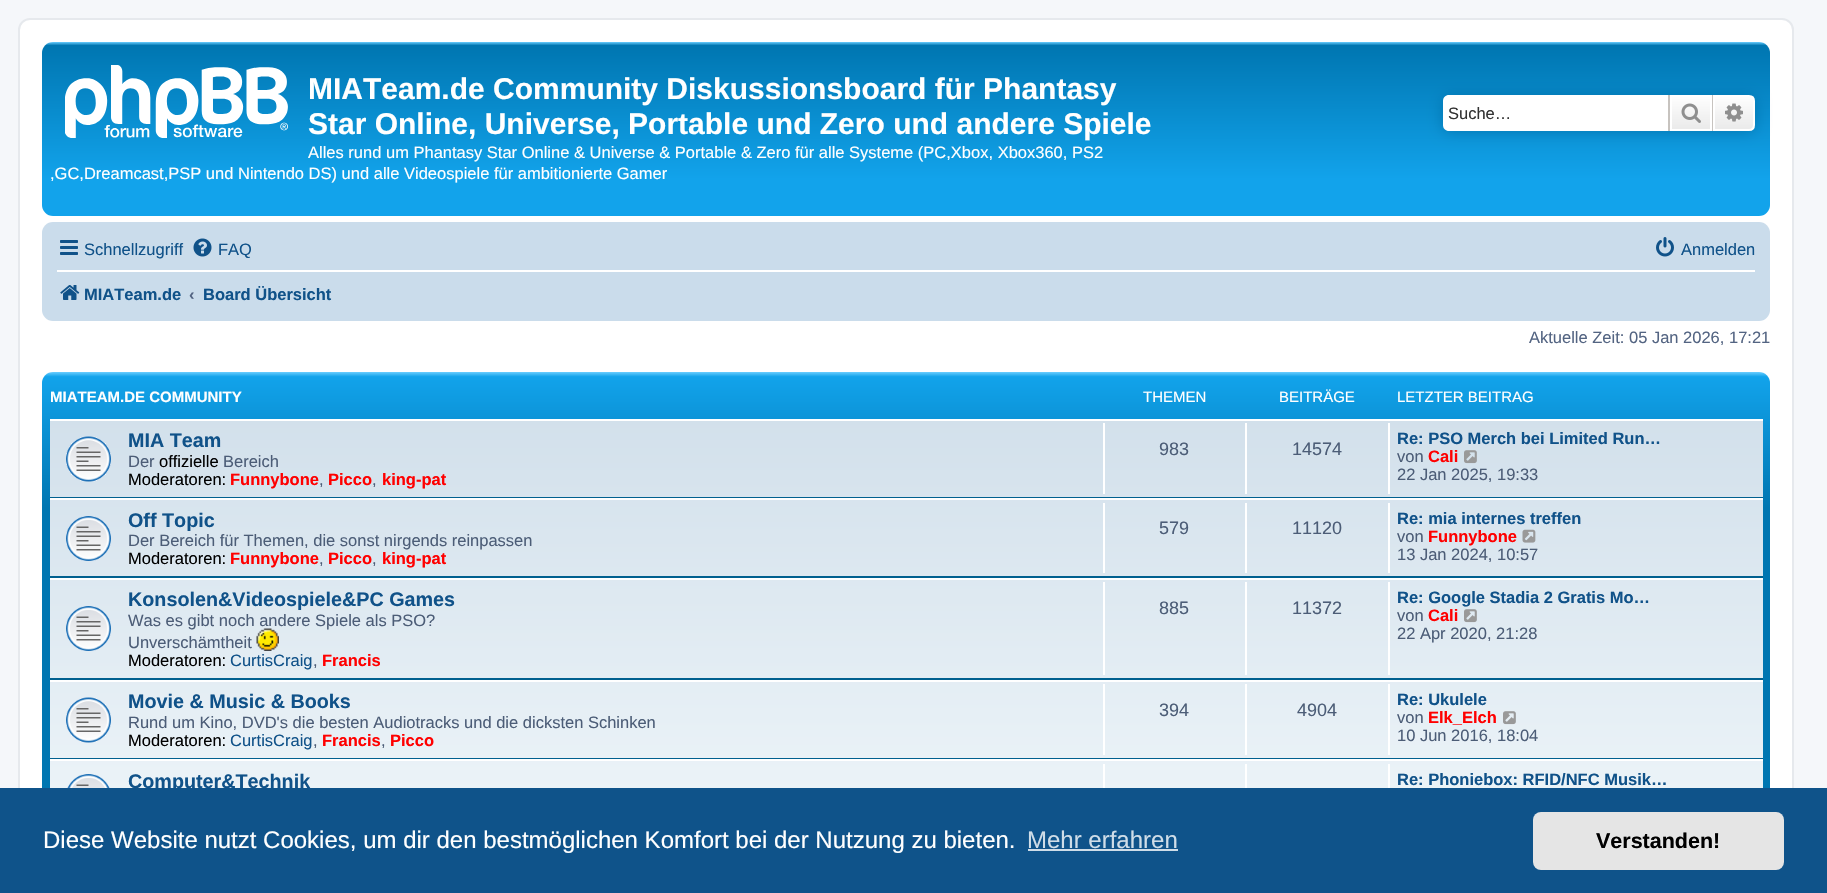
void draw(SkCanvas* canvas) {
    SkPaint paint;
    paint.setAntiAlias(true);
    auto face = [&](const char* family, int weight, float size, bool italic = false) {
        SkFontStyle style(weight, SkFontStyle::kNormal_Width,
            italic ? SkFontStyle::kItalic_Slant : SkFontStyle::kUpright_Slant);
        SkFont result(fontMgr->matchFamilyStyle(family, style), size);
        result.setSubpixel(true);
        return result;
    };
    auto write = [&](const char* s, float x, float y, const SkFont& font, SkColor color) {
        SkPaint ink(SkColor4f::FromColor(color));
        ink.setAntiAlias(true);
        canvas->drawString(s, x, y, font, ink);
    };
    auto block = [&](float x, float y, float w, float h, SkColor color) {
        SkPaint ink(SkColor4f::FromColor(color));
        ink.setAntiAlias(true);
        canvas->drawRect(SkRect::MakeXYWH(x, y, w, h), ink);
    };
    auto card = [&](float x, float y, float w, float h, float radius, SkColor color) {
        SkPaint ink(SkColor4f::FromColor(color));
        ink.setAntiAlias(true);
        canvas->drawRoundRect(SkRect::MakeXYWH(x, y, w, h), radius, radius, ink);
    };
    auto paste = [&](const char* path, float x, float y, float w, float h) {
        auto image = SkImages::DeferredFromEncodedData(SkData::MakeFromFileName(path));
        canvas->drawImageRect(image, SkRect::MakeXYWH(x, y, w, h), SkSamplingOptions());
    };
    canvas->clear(SkColorSetRGB(245, 247, 250));
    paint.setColor(SK_ColorWHITE);
    canvas->drawRoundRect(SkRect::MakeXYWH(19, 19, 1774, 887), 11, 11, paint);
    paint.setStyle(SkPaint::kStroke_Style);
    paint.setStrokeWidth(2);
    paint.setColor(SkColorSetRGB(230, 233, 237));
    canvas->drawRoundRect(SkRect::MakeXYWH(19, 19, 1774, 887), 11, 11, paint);
    paint.setStyle(SkPaint::kFill_Style);
    {
        const SkColor colors[] = {SkColorSetRGB(106, 206, 255), SkColorSetRGB(0, 118, 177), SkColorSetRGB(18, 163, 235), SkColorSetRGB(18, 163, 235)};
        const float stops[] = {0, 0.02f, 0.79f, 1};
        const SkPoint ends[] = {{906, 42}, {906, 216}};
        paint.setShader(SkGradientShader::MakeLinear(ends, colors, stops, 4, SkTileMode::kClamp));
        paint.setAlpha(255);
    }
    canvas->drawRoundRect(SkRect::MakeXYWH(42, 42, 1728, 174), 11, 11, paint);
    paste("pic1.png", 65, 65, 223, 73);
    auto kFont1 = face("Liberation Sans", 700, 30);
    write("MIATeam.de Community Diskussionsboard für Phantasy", 308, 99, kFont1, SK_ColorWHITE);
    write("Star Online, Universe, Portable und Zero und andere Spiele", 308, 134, kFont1, SK_ColorWHITE);
    auto kFont2 = face("Liberation Sans", 400, 16.5f);
    write("Alles rund um Phantasy Star Online & Universe & Portable & Zero für alle Systeme (PC,Xbox, Xbox360, PS2", 308, 158, kFont2, SK_ColorWHITE);
    write(",GC,Dreamcast,PSP und Nintendo DS) und alle Videospiele für ambitionierte Gamer", 50, 179, kFont2, SK_ColorWHITE);
    paint.setShader(nullptr);
    paint.setColor(SkColorSetRGB(0, 117, 176));
    paint.setMaskFilter(SkMaskFilter::MakeBlur(kNormal_SkBlurStyle, 7.5f));
    canvas->drawRoundRect(SkRect::MakeXYWH(1443, 95, 312, 36), 6, 6, paint);
    paint.setMaskFilter(nullptr);
    paint.setColor(SK_ColorWHITE);
    canvas->drawPath(SkPathBuilder().moveTo(1449, 95).lineTo(1668, 95).lineTo(1668, 131).lineTo(1449, 131).cubicTo(1445.5f, 131, 1443, 128.5f, 1443, 125).lineTo(1443, 101).cubicTo(1443, 97.5f, 1445.5f, 95, 1449, 95).close().detach(), paint);
    write("Suche…", 1448, 119, kFont2, SkColorSetRGB(51, 51, 51));
    {
        const SkColor colors[] = {SK_ColorWHITE, SkColorSetRGB(233, 233, 233)};
        const float stops[] = {0, 1};
        const SkPoint ends[] = {{1691, 95}, {1691, 131}};
        paint.setShader(SkGradientShader::MakeLinear(ends, colors, stops, 2, SkTileMode::kClamp));
        paint.setAlpha(255);
    }
    canvas->drawRect(SkRect::MakeXYWH(1672, 97, 38, 32), paint);
    paint.setStyle(SkPaint::kStroke_Style);
    paint.setShader(nullptr);
    paint.setColor(SK_ColorWHITE);
    canvas->drawRect(SkRect::MakeXYWH(1671, 96, 40, 34), paint);
    block(1712, 95, 1, 36, SkColorSetRGB(199, 195, 191));
    block(1668, 95, 2, 36, SkColorSetRGB(199, 195, 191));
    paste("pic2.png", 1681, 103, 20, 20);
    paint.setStyle(SkPaint::kFill_Style);
    {
        const SkColor colors[] = {SK_ColorWHITE, SkColorSetRGB(233, 233, 233)};
        const float stops[] = {0, 1};
        const SkPoint ends[] = {{1734, 95}, {1734, 131}};
        paint.setShader(SkGradientShader::MakeLinear(ends, colors, stops, 2, SkTileMode::kClamp));
        paint.setAlpha(255);
    }
    canvas->drawPath(SkPathBuilder().moveTo(1714, 96).lineTo(1749, 96).cubicTo(1752, 96, 1754, 98, 1754, 101).lineTo(1754, 125).cubicTo(1754, 128, 1752, 130, 1749, 130).lineTo(1714, 130).close().detach(), paint);
    paint.setStyle(SkPaint::kStroke_Style);
    paint.setShader(nullptr);
    paint.setColor(SK_ColorWHITE);
    canvas->drawPath(SkPathBuilder().moveTo(1714, 96).lineTo(1749, 96).cubicTo(1752, 96, 1754, 98, 1754, 101).lineTo(1754, 125).cubicTo(1754, 128, 1752, 130, 1749, 130).lineTo(1714, 130).close().detach(), paint);
    paste("pic3.png", 1725, 103, 18, 19);
    card(42, 222, 1728, 99, 11, SkColorSetRGB(202, 220, 235));
    paste("pic4.png", 60, 240, 18, 15);
    write("Schnellzugriff", 84, 255, kFont2, SkColorSetRGB(16, 82, 137));
    paste("pic5.png", 193, 238, 19, 19);
    write("FAQ", 218, 255, kFont2, SkColorSetRGB(16, 82, 137));
    paste("pic6.png", 1656, 237, 18, 20);
    write("Anmelden", 1681, 255, kFont2, SkColorSetRGB(16, 82, 137));
    block(57, 270, 1698, 2, SK_ColorWHITE);
    paste("pic7.png", 60, 285, 20, 15);
    auto kFont3 = face("Liberation Sans", 700, 16.5f);
    write("MIATeam.de", 84, 300, kFont3, SkColorSetRGB(16, 82, 137));
    write("‹", 189, 300, kFont3, SkColorSetRGB(83, 100, 130));
    write("Board Übersicht", 203, 300, kFont3, SkColorSetRGB(16, 82, 137));
    write("Aktuelle Zeit: 05 Jan 2026, 17:21", 1529, 343, kFont2, SkColorSetRGB(83, 100, 130));
    paint.setStyle(SkPaint::kFill_Style);
    {
        const SkColor colors[] = {SkColorSetRGB(106, 206, 255), SkColorSetRGB(18, 163, 235), SkColorSetRGB(0, 118, 177), SkColorSetRGB(0, 118, 177)};
        const float stops[] = {0, 0.01f, 0.29f, 1};
        const SkPoint ends[] = {{906, 372}, {906, 842}};
        paint.setShader(SkGradientShader::MakeLinear(ends, colors, stops, 4, SkTileMode::kClamp));
        paint.setAlpha(255);
    }
    canvas->drawRoundRect(SkRect::MakeXYWH(42, 372, 1728, 470), 11, 11, paint);
    auto kFont4 = face("Liberation Sans", 700, 15);
    write("MIATEAM.DE COMMUNITY", 50, 402, kFont4, SK_ColorWHITE);
    auto kFont5 = face("Liberation Sans", 400, 15);
    write("THEMEN", 1143, 402, kFont5, SK_ColorWHITE);
    write("BEITRÄGE", 1279, 402, kFont5, SK_ColorWHITE);
    write("LETZTER BEITRAG", 1397, 402, kFont5, SK_ColorWHITE);
    {
        const SkColor colors[] = {SkColorSetRGB(210, 224, 235), SkColorSetRGB(238, 245, 249)};
        const float stops[] = {0, 1};
        const SkPoint ends[] = {{906, 418}, {906, 834}};
        paint.setShader(SkGradientShader::MakeLinear(ends, colors, stops, 2, SkTileMode::kClamp));
        paint.setAlpha(255);
    }
    canvas->drawRect(SkRect::MakeXYWH(50, 421, 1713, 367), paint);
    block(50, 419, 1713, 2, SK_ColorWHITE);
    block(50, 497, 1713, 1, SkColorSetRGB(0, 96, 143));
    paste("pic8.png", 66, 436, 45, 46);
    auto kFont6 = face("Liberation Sans", 700, 19.75f);
    write("MIA Team", 128, 447, kFont6, SkColorSetRGB(16, 82, 137));
    write("Der", 128, 467, kFont2, SkColorSetRGB(76, 93, 119));
    write("offizielle", 159, 467, kFont2, SK_ColorBLACK);
    write("Bereich", 223, 467, kFont2, SkColorSetRGB(76, 93, 119));
    write("Moderatoren:", 128, 485, kFont2, SK_ColorBLACK);
    write("Funnybone", 230, 485, kFont3, SkColorSetRGB(255, 0, 0));
    write(",", 319, 485, kFont2, SkColorSetRGB(76, 93, 119));
    write("Picco", 328, 485, kFont3, SkColorSetRGB(255, 0, 0));
    write(",", 372, 485, kFont2, SkColorSetRGB(76, 93, 119));
    write("king-pat", 382, 485, kFont3, SkColorSetRGB(255, 0, 0));
    block(1103, 423, 2, 71, SK_ColorWHITE);
    auto kFont7 = face("Liberation Sans", 400, 18);
    write("983", 1159, 455, kFont7, SkColorSetRGB(76, 93, 119));
    block(1245, 423, 2, 71, SK_ColorWHITE);
    write("14574", 1292, 455, kFont7, SkColorSetRGB(76, 93, 119));
    block(1388, 423, 2, 71, SK_ColorWHITE);
    write("Re: PSO Merch bei Limited Run…", 1397, 444, kFont3, SkColorSetRGB(16, 82, 137));
    write("von", 1397, 462, kFont2, SkColorSetRGB(76, 93, 119));
    write("Cali", 1428, 462, kFont3, SkColorSetRGB(255, 0, 0));
    paste("pic9.png", 1464, 450, 13, 14);
    write("22 Jan 2025, 19:33", 1397, 480, kFont2, SkColorSetRGB(76, 93, 119));
    block(50, 498, 1713, 2, SK_ColorWHITE);
    block(50, 576, 1713, 2, SkColorSetRGB(0, 96, 143));
    paste("pic10.png", 66, 516, 45, 45);
    write("Off Topic", 128, 527, kFont6, SkColorSetRGB(16, 82, 137));
    write("Der Bereich für Themen, die sonst nirgends reinpassen", 128, 546, kFont2, SkColorSetRGB(76, 93, 119));
    write("Moderatoren:", 128, 564, kFont2, SK_ColorBLACK);
    write("Funnybone", 230, 564, kFont3, SkColorSetRGB(255, 0, 0));
    write(",", 319, 564, kFont2, SkColorSetRGB(76, 93, 119));
    write("Picco", 328, 564, kFont3, SkColorSetRGB(255, 0, 0));
    write(",", 372, 564, kFont2, SkColorSetRGB(76, 93, 119));
    write("king-pat", 382, 564, kFont3, SkColorSetRGB(255, 0, 0));
    block(1103, 503, 2, 70, SK_ColorWHITE);
    write("579", 1159, 534, kFont7, SkColorSetRGB(76, 93, 119));
    block(1245, 503, 2, 70, SK_ColorWHITE);
    write("11120", 1292, 534, kFont7, SkColorSetRGB(76, 93, 119));
    block(1388, 503, 2, 70, SK_ColorWHITE);
    write("Re: mia internes treffen", 1397, 524, kFont3, SkColorSetRGB(16, 82, 137));
    write("von", 1397, 542, kFont2, SkColorSetRGB(76, 93, 119));
    write("Funnybone", 1428, 542, kFont3, SkColorSetRGB(255, 0, 0));
    paste("pic11.png", 1522, 529, 14, 14);
    write("13 Jan 2024, 10:57", 1397, 560, kFont2, SkColorSetRGB(76, 93, 119));
    block(50, 578, 1713, 2, SK_ColorWHITE);
    block(50, 678, 1713, 2, SkColorSetRGB(0, 96, 143));
    paste("pic12.png", 66, 606, 45, 45);
    write("Konsolen&Videospiele&PC Games", 128, 606, kFont6, SkColorSetRGB(16, 82, 137));
    write("Was es gibt noch andere Spiele als PSO?", 128, 626, kFont2, SkColorSetRGB(76, 93, 119));
    write("Unverschämtheit", 128, 648, kFont2, SkColorSetRGB(76, 93, 119));
    paste("pic13.png", 256, 628, 23, 23);
    write("Moderatoren:", 128, 666, kFont2, SK_ColorBLACK);
    write("CurtisCraig", 230, 666, kFont2, SkColorSetRGB(16, 82, 137));
    write(",", 313, 666, kFont2, SkColorSetRGB(76, 93, 119));
    write("Francis", 322, 666, kFont3, SkColorSetRGB(255, 0, 0));
    block(1103, 582, 2, 93, SK_ColorWHITE);
    write("885", 1159, 614, kFont7, SkColorSetRGB(76, 93, 119));
    block(1245, 582, 2, 93, SK_ColorWHITE);
    write("11372", 1292, 614, kFont7, SkColorSetRGB(76, 93, 119));
    block(1388, 582, 2, 93, SK_ColorWHITE);
    write("Re: Google Stadia 2 Gratis Mo…", 1397, 603, kFont3, SkColorSetRGB(16, 82, 137));
    write("von", 1397, 621, kFont2, SkColorSetRGB(76, 93, 119));
    write("Cali", 1428, 621, kFont3, SkColorSetRGB(255, 0, 0));
    paste("pic14.png", 1464, 609, 13, 14);
    write("22 Apr 2020, 21:28", 1397, 639, kFont2, SkColorSetRGB(76, 93, 119));
    block(50, 680, 1713, 2, SK_ColorWHITE);
    block(50, 758, 1713, 1, SkColorSetRGB(0, 96, 143));
    paste("pic15.png", 66, 697, 45, 46);
    write("Movie & Music & Books", 128, 708, kFont6, SkColorSetRGB(16, 82, 137));
    write("Rund um Kino, DVD's die besten Audiotracks und die dicksten Schinken", 128, 728, kFont2, SkColorSetRGB(76, 93, 119));
    write("Moderatoren:", 128, 746, kFont2, SK_ColorBLACK);
    write("CurtisCraig", 230, 746, kFont2, SkColorSetRGB(16, 82, 137));
    write(",", 313, 746, kFont2, SkColorSetRGB(76, 93, 119));
    write("Francis", 322, 746, kFont3, SkColorSetRGB(255, 0, 0));
    write(",", 381, 746, kFont2, SkColorSetRGB(76, 93, 119));
    write("Picco", 390, 746, kFont3, SkColorSetRGB(255, 0, 0));
    block(1103, 684, 2, 71, SK_ColorWHITE);
    write("394", 1159, 716, kFont7, SkColorSetRGB(76, 93, 119));
    block(1245, 684, 2, 71, SK_ColorWHITE);
    write("4904", 1297, 716, kFont7, SkColorSetRGB(76, 93, 119));
    block(1388, 684, 2, 71, SK_ColorWHITE);
    write("Re: Ukulele", 1397, 705, kFont3, SkColorSetRGB(16, 82, 137));
    write("von", 1397, 723, kFont2, SkColorSetRGB(76, 93, 119));
    write("Elk_Elch", 1428, 723, kFont3, SkColorSetRGB(255, 0, 0));
    paste("pic16.png", 1503, 711, 13, 14);
    write("10 Jun 2016, 18:04", 1397, 741, kFont2, SkColorSetRGB(76, 93, 119));
    block(50, 759, 1713, 2, SK_ColorWHITE);
    paste("pic17.png", 67, 774, 43, 14);
    write("Computer&Technik", 128, 788, kFont6, SkColorSetRGB(16, 82, 137));
    block(1103, 764, 2, 24, SK_ColorWHITE);
    block(1245, 764, 2, 24, SK_ColorWHITE);
    block(1388, 764, 2, 24, SK_ColorWHITE);
    write("Re: Phoniebox: RFID/NFC Musik…", 1397, 785, kFont3, SkColorSetRGB(16, 82, 137));
    block(0, 788, 1827, 105, SkColorSetRGB(15, 83, 138));
    auto kFont8 = face("Liberation Sans", 400, 24);
    write("Diese Website nutzt Cookies, um dir den bestmöglichen Komfort bei der Nutzung zu bieten.", 43, 848, kFont8, SK_ColorWHITE);
    write("Mehr erfahren", 1027, 848, kFont8, SkColorSetRGB(207, 221, 232));
    block(1028, 849, 150, 2, SkColorSetRGB(207, 221, 232));
    card(1533, 812, 251, 58, 8, SkColorSetRGB(229, 229, 229));
    auto kFont9 = face("Liberation Sans", 700, 21.5f);
    write("Verstanden!", 1596, 848, kFont9, SK_ColorBLACK);
}
